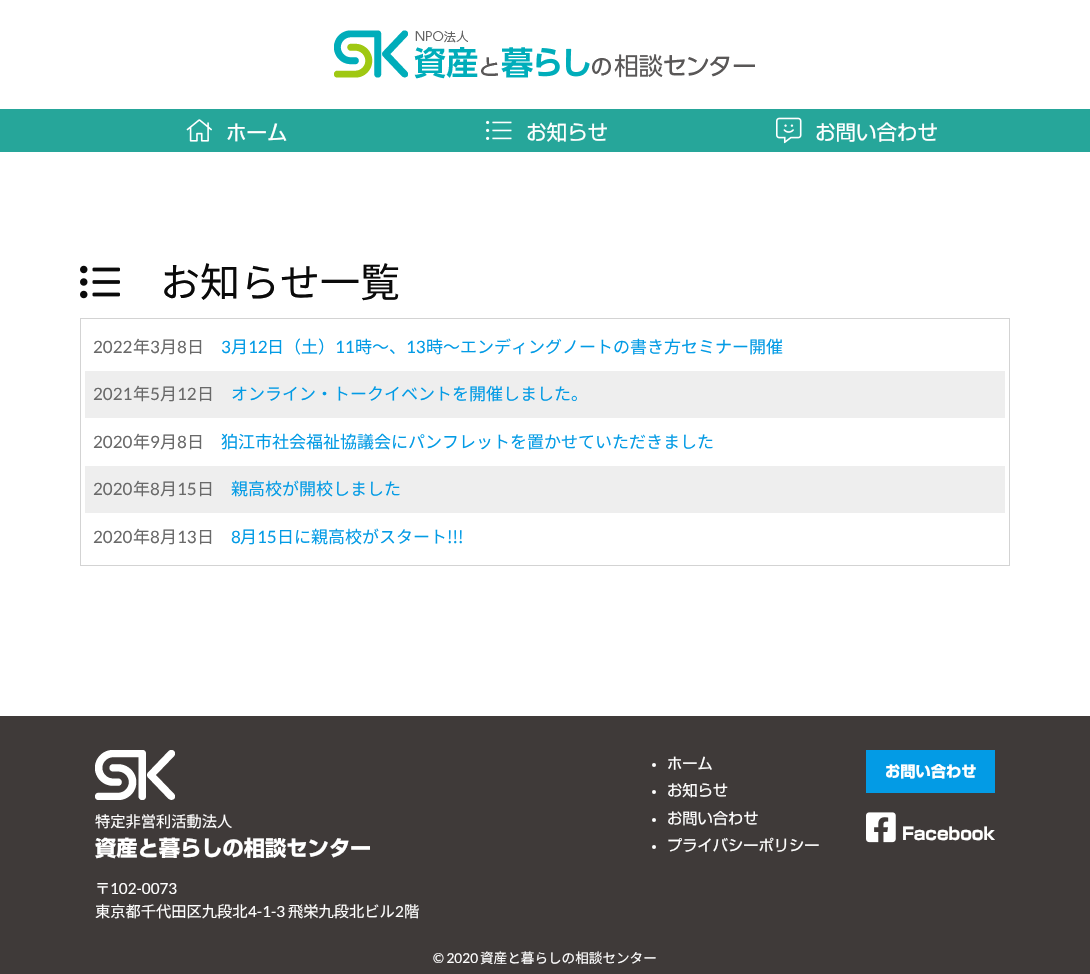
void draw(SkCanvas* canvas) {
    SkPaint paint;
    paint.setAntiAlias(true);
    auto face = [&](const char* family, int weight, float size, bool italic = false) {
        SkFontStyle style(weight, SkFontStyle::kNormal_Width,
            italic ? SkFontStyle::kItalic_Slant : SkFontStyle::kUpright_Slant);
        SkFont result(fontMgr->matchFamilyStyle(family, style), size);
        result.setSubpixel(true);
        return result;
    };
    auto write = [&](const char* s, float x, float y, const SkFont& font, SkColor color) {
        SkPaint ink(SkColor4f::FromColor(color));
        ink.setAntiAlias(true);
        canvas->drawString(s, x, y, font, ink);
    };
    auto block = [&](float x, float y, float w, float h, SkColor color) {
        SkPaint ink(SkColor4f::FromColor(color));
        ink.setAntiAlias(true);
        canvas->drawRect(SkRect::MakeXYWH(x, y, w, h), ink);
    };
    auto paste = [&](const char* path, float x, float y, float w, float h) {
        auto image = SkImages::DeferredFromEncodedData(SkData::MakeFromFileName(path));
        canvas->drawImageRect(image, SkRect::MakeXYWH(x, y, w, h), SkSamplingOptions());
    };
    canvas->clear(SK_ColorWHITE);
    paste("pic1.png", 334, 30, 421, 49);
    block(0, 109, 1090, 43, SkColorSetRGB(38, 166, 154));
    paste("pic2.png", 186, 119, 26, 23);
    auto kFont1 = face("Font", 400, 20.5f);
    write("ホーム", 226, 140, kFont1, SK_ColorWHITE);
    paste("pic3.png", 486, 120, 26, 20);
    write("お知らせ", 526, 140, kFont1, SK_ColorWHITE);
    paste("pic4.png", 776, 117, 26, 27);
    write("お問い合わせ", 815, 140, kFont1, SK_ColorWHITE);
    paste("pic5.png", 80, 265, 40, 34);
    auto kFont2 = face("Noto Sans JP", 400, 40);
    write("お知らせ一覧", 160, 297, kFont2, SkColorSetRGB(10, 10, 10));
    paint.setStyle(SkPaint::kStroke_Style);
    paint.setStrokeWidth(1);
    paint.setColor(SkColorSetRGB(211, 211, 211));
    canvas->drawRect(SkRect::MakeXYWH(80.5f, 318.5f, 929, 247), paint);
    auto kFont3 = face("Lato", 400, 17);
    write("2022", 93, 353, kFont3, SkColorSetRGB(105, 105, 105));
    auto kFont4 = face("Noto Sans JP", 400, 17);
    write("年", 133, 353, kFont4, SkColorSetRGB(105, 105, 105));
    write("3", 150, 353, kFont3, SkColorSetRGB(105, 105, 105));
    write("月", 160, 353, kFont4, SkColorSetRGB(105, 105, 105));
    write("8", 177, 353, kFont3, SkColorSetRGB(105, 105, 105));
    write("日", 187, 353, kFont4, SkColorSetRGB(105, 105, 105));
    write("3", 221, 353, kFont3, SkColorSetRGB(3, 155, 229));
    write("月", 231, 353, kFont4, SkColorSetRGB(3, 155, 229));
    write("12", 248, 353, kFont3, SkColorSetRGB(3, 155, 229));
    write("日（土）", 267, 353, kFont4, SkColorSetRGB(3, 155, 229));
    write("11", 335, 353, kFont3, SkColorSetRGB(3, 155, 229));
    write("時～、", 355, 353, kFont4, SkColorSetRGB(3, 155, 229));
    write("13", 406, 353, kFont3, SkColorSetRGB(3, 155, 229));
    write("時～エンディングノートの書き方セミナー開催", 426, 353, kFont4, SkColorSetRGB(3, 155, 229));
    block(85, 371, 920, 47, SkColorSetRGB(238, 238, 238));
    write("2021", 93, 400, kFont3, SkColorSetRGB(105, 105, 105));
    write("年", 133, 400, kFont4, SkColorSetRGB(105, 105, 105));
    write("5", 150, 400, kFont3, SkColorSetRGB(105, 105, 105));
    write("月", 160, 400, kFont4, SkColorSetRGB(105, 105, 105));
    write("12", 177, 400, kFont3, SkColorSetRGB(105, 105, 105));
    write("日", 197, 400, kFont4, SkColorSetRGB(105, 105, 105));
    write("オンライン・トークイベントを開催しました。", 231, 400, kFont4, SkColorSetRGB(3, 155, 229));
    write("2020", 93, 448, kFont3, SkColorSetRGB(105, 105, 105));
    write("年", 133, 448, kFont4, SkColorSetRGB(105, 105, 105));
    write("9", 150, 448, kFont3, SkColorSetRGB(105, 105, 105));
    write("月", 160, 448, kFont4, SkColorSetRGB(105, 105, 105));
    write("8", 177, 448, kFont3, SkColorSetRGB(105, 105, 105));
    write("日", 187, 448, kFont4, SkColorSetRGB(105, 105, 105));
    write("狛江市社会福祉協議会にパンフレットを置かせていただきました", 221, 448, kFont4, SkColorSetRGB(3, 155, 229));
    block(85, 466, 920, 47, SkColorSetRGB(238, 238, 238));
    write("2020", 93, 495, kFont3, SkColorSetRGB(105, 105, 105));
    write("年", 133, 495, kFont4, SkColorSetRGB(105, 105, 105));
    write("8", 150, 495, kFont3, SkColorSetRGB(105, 105, 105));
    write("月", 160, 495, kFont4, SkColorSetRGB(105, 105, 105));
    write("15", 177, 495, kFont3, SkColorSetRGB(105, 105, 105));
    write("日", 197, 495, kFont4, SkColorSetRGB(105, 105, 105));
    write("親高校が開校しました", 231, 495, kFont4, SkColorSetRGB(3, 155, 229));
    write("2020", 93, 543, kFont3, SkColorSetRGB(105, 105, 105));
    write("年", 133, 543, kFont4, SkColorSetRGB(105, 105, 105));
    write("8", 150, 543, kFont3, SkColorSetRGB(105, 105, 105));
    write("月", 160, 543, kFont4, SkColorSetRGB(105, 105, 105));
    write("13", 177, 543, kFont3, SkColorSetRGB(105, 105, 105));
    write("日", 197, 543, kFont4, SkColorSetRGB(105, 105, 105));
    write("8", 231, 543, kFont3, SkColorSetRGB(3, 155, 229));
    write("月", 240, 543, kFont4, SkColorSetRGB(3, 155, 229));
    write("15", 257, 543, kFont3, SkColorSetRGB(3, 155, 229));
    write("日に親高校がスタート!!!", 277, 543, kFont4, SkColorSetRGB(3, 155, 229));
    block(0, 716, 1090, 258, SkColorSetRGB(63, 58, 57));
    paint.setStyle(SkPaint::kFill_Style);
    paint.setColor(SK_ColorWHITE);
    canvas->drawCircle(654, 765, 2, paint);
    auto kFont5 = face("Font", 400, 15.25f);
    write("ホーム", 667, 769, kFont5, SK_ColorWHITE);
    canvas->drawCircle(654, 792, 2, paint);
    write("お知らせ", 667, 796, kFont5, SK_ColorWHITE);
    canvas->drawCircle(654, 820, 2, paint);
    write("お問い合わせ", 667, 824, kFont5, SK_ColorWHITE);
    canvas->drawCircle(654, 847, 2, paint);
    write("プライバシーポリシー", 667, 851, kFont5, SK_ColorWHITE);
    block(866, 750, 129, 43, SkColorSetRGB(3, 155, 229));
    auto kFont6 = face("Font", 700, 15.25f);
    write("お問い合わせ", 885, 777, kFont6, SK_ColorWHITE);
    paste("pic6.png", 866, 812, 30, 31);
    auto kFont7 = face("Font", 700, 17);
    write("Facebook", 902, 840, kFont7, SK_ColorWHITE);
    paste("pic7.png", 95, 750, 80, 50);
    auto kFont8 = face("Noto Sans JP", 400, 15.25f);
    write("特定非営利活動法人", 95, 827, kFont8, SK_ColorWHITE);
    auto kFont9 = face("Font", 700, 21.25f);
    write("資産と暮らしの相談センター", 95, 856, kFont9, SK_ColorWHITE);
    write("〒", 95, 894, kFont8, SK_ColorWHITE);
    auto kFont10 = face("Lato", 400, 15.25f);
    write("102-0073", 110, 894, kFont10, SK_ColorWHITE);
    write("東京都千代田区九段北", 95, 917, kFont8, SK_ColorWHITE);
    write("4-1-3", 248, 917, kFont10, SK_ColorWHITE);
    write("飛栄九段北ビル", 288, 917, kFont8, SK_ColorWHITE);
    write("2", 395, 917, kFont10, SK_ColorWHITE);
    write("階", 404, 917, kFont8, SK_ColorWHITE);
    auto kFont11 = face("Lato", 400, 13.6f);
    write("© 2020", 433, 963, kFont11, SK_ColorWHITE);
    auto kFont12 = face("Noto Sans JP", 400, 13.6f);
    write("資産と暮らしの相談センター", 480, 963, kFont12, SK_ColorWHITE);
}
